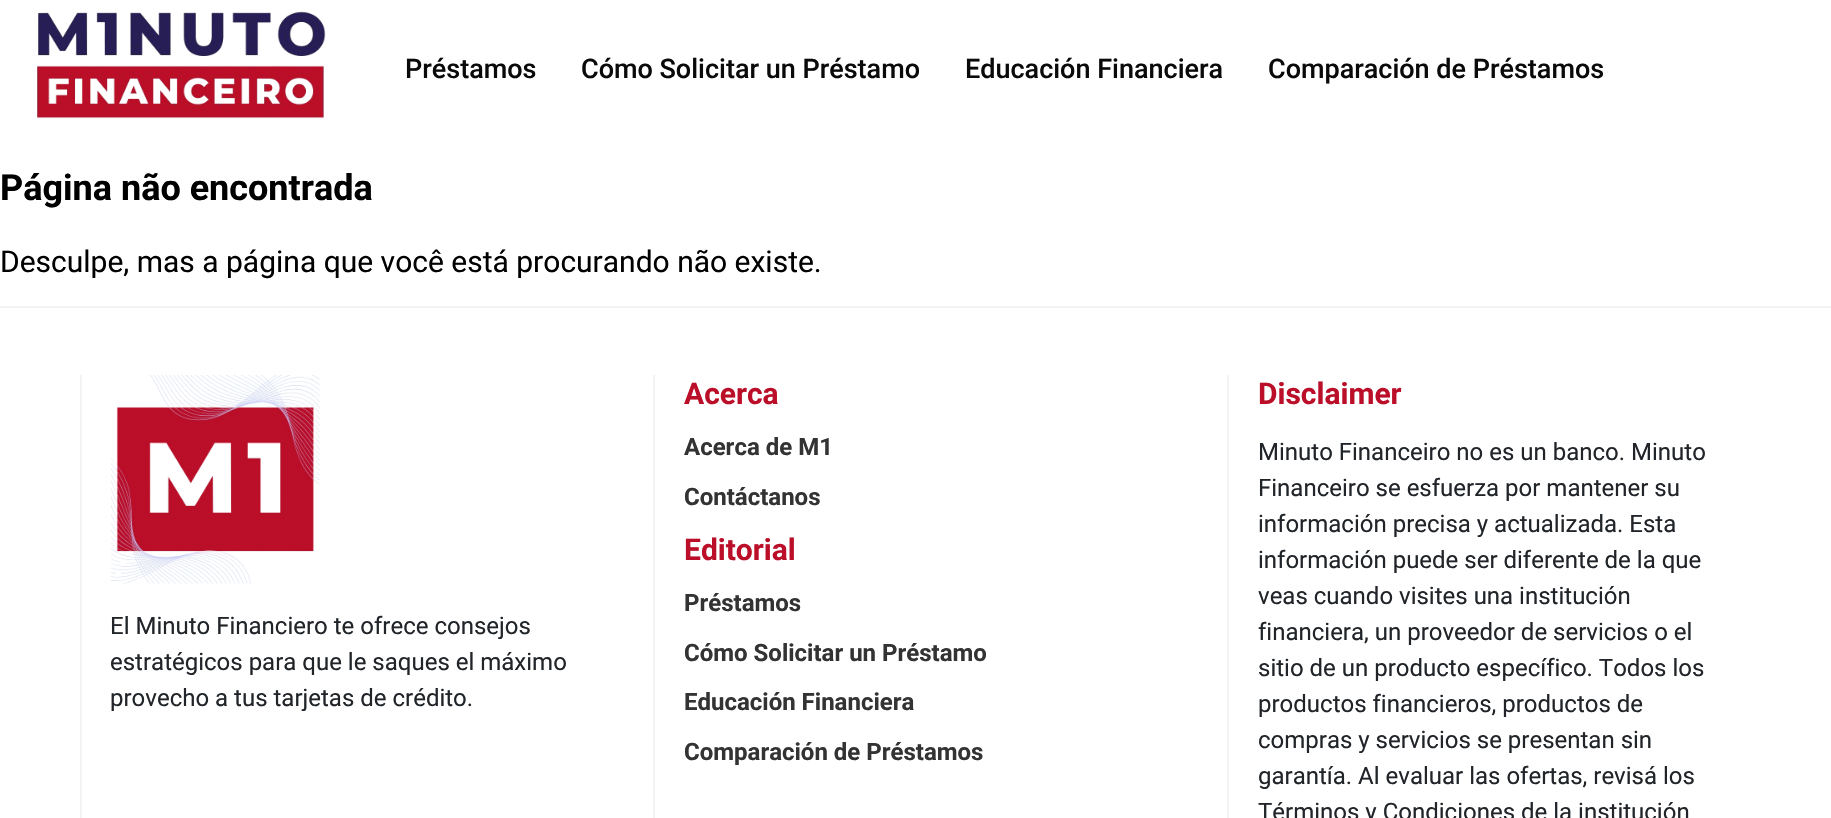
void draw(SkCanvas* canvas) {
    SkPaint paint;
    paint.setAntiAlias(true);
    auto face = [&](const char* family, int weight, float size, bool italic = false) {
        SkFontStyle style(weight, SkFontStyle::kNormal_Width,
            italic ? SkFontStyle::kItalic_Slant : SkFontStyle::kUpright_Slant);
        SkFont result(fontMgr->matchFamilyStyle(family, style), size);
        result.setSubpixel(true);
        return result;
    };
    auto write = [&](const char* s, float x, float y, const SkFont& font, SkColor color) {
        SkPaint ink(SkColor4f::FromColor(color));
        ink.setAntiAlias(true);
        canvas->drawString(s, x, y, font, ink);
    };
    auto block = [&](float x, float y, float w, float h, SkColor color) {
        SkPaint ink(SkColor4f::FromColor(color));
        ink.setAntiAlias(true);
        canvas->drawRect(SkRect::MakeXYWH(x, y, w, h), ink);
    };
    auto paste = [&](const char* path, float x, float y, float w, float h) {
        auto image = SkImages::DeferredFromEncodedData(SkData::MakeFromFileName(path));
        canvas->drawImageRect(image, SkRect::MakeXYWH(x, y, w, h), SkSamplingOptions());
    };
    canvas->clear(SK_ColorWHITE);
    paste("pic1.png", 37, 11, 289, 108);
    auto kFont1 = face("Roboto", 500, 27);
    write("Préstamos", 405, 78, kFont1, SkColorSetRGB(10, 10, 10));
    write("Cómo Solicitar un Préstamo", 581, 78, kFont1, SkColorSetRGB(10, 10, 10));
    write("Educación Financiera", 965, 78, kFont1, SkColorSetRGB(10, 10, 10));
    write("Comparación de Préstamos", 1268, 78, kFont1, SkColorSetRGB(10, 10, 10));
    auto kFont2 = face("Roboto", 700, 36);
    write("Página não encontrada", 0, 200, kFont2, SK_ColorBLACK);
    auto kFont3 = face("Roboto", 400, 30);
    write("Desculpe, mas a página que você está procurando não existe.", 0, 272, kFont3, SK_ColorBLACK);
    block(0, 306, 1831, 2, SkColorSetRGB(243, 243, 243));
    block(80, 375, 2, 443, SkColorSetRGB(243, 243, 243));
    paste("pic2.png", 111, 375, 209, 209);
    auto kFont4 = face("Roboto", 400, 24);
    write("El Minuto Financiero te ofrece consejos", 110, 634, kFont4, SkColorSetRGB(33, 37, 41));
    write("estratégicos para que le saques el máximo", 110, 670, kFont4, SkColorSetRGB(33, 37, 41));
    write("provecho a tus tarjetas de crédito.", 110, 706, kFont4, SkColorSetRGB(33, 37, 41));
    block(653, 375, 2, 443, SkColorSetRGB(243, 243, 243));
    auto kFont5 = face("Roboto", 700, 30);
    write("Acerca", 684, 404, kFont5, SkColorSetRGB(187, 15, 41));
    auto kFont6 = face("Roboto", 700, 24);
    write("Acerca de M1", 684, 455, kFont6, SkColorSetRGB(51, 51, 51));
    write("Contáctanos", 684, 505, kFont6, SkColorSetRGB(51, 51, 51));
    write("Editorial", 684, 560, kFont5, SkColorSetRGB(187, 15, 41));
    write("Préstamos", 684, 611, kFont6, SkColorSetRGB(51, 51, 51));
    write("Cómo Solicitar un Préstamo", 684, 661, kFont6, SkColorSetRGB(51, 51, 51));
    write("Educación Financiera", 684, 710, kFont6, SkColorSetRGB(51, 51, 51));
    write("Comparación de Préstamos", 684, 760, kFont6, SkColorSetRGB(51, 51, 51));
    block(1227, 375, 2, 443, SkColorSetRGB(243, 243, 243));
    write("Disclaimer", 1258, 404, kFont5, SkColorSetRGB(187, 15, 41));
    write("Minuto Financeiro no es un banco. Minuto", 1258, 460, kFont4, SkColorSetRGB(33, 37, 41));
    write("Financeiro se esfuerza por mantener su", 1258, 496, kFont4, SkColorSetRGB(33, 37, 41));
    write("información precisa y actualizada. Esta", 1258, 532, kFont4, SkColorSetRGB(33, 37, 41));
    write("información puede ser diferente de la que", 1258, 568, kFont4, SkColorSetRGB(33, 37, 41));
    write("veas cuando visites una institución", 1258, 604, kFont4, SkColorSetRGB(33, 37, 41));
    write("financiera, un proveedor de servicios o el", 1258, 640, kFont4, SkColorSetRGB(33, 37, 41));
    write("sitio de un producto específico. Todos los", 1258, 676, kFont4, SkColorSetRGB(33, 37, 41));
    write("productos financieros, productos de", 1258, 712, kFont4, SkColorSetRGB(33, 37, 41));
    write("compras y servicios se presentan sin", 1258, 748, kFont4, SkColorSetRGB(33, 37, 41));
    write("garantía. Al evaluar las ofertas, revisá los", 1258, 784, kFont4, SkColorSetRGB(33, 37, 41));
    write("Términos y Condiciones de la institución", 1258, 820, kFont4, SkColorSetRGB(33, 37, 41));
}
